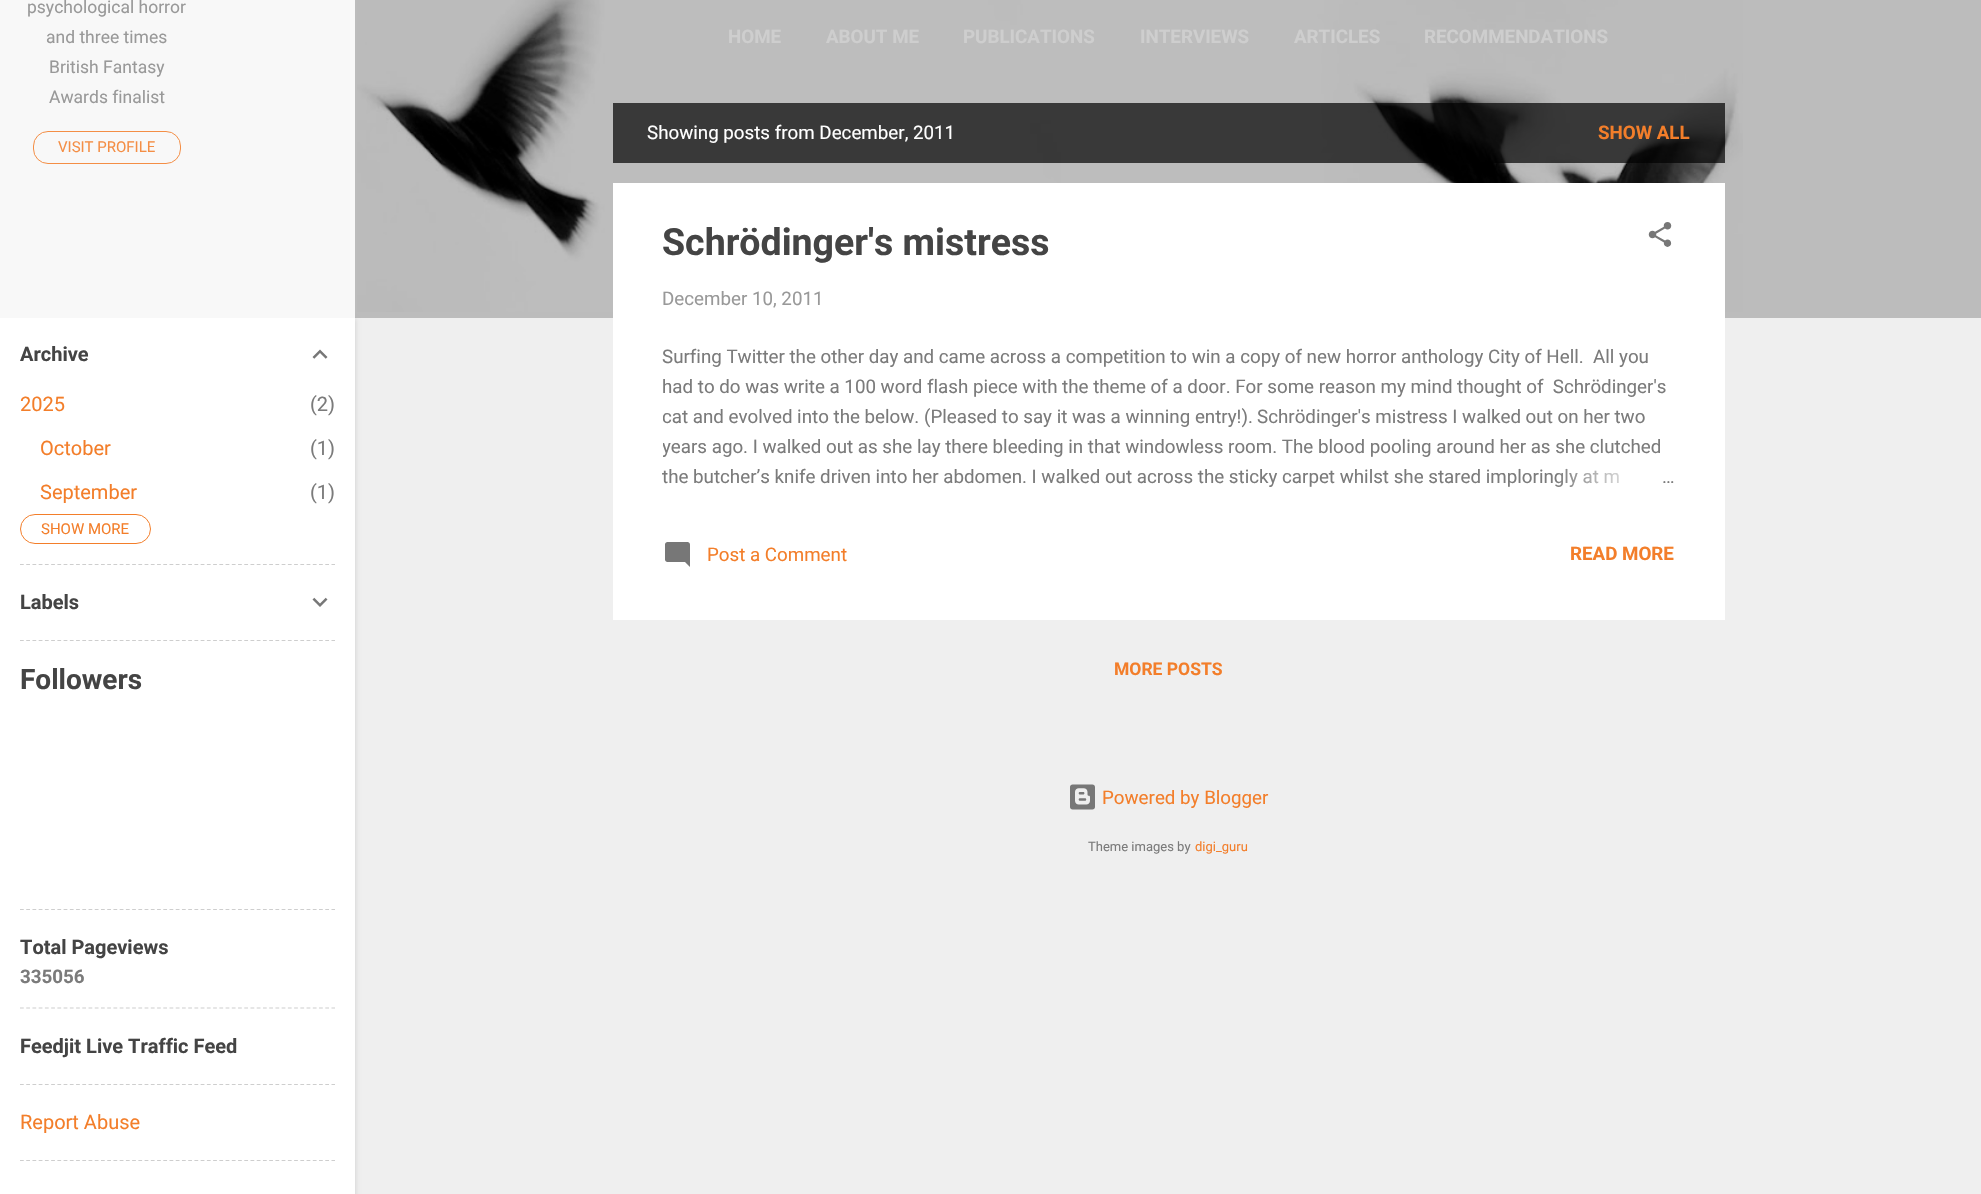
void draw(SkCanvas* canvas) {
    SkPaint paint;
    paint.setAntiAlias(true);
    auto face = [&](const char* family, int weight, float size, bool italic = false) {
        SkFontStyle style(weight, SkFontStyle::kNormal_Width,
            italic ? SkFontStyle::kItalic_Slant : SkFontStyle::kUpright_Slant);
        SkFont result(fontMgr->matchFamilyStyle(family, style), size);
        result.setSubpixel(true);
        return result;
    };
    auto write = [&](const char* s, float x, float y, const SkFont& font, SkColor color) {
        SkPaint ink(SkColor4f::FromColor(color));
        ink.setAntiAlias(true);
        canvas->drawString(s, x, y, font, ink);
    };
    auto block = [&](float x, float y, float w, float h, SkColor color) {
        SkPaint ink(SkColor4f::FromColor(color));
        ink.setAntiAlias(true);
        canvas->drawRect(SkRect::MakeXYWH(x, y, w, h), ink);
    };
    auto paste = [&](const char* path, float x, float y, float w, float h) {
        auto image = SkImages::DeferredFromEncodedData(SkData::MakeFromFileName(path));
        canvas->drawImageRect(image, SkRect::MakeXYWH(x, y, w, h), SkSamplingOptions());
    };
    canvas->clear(SkColorSetRGB(239, 239, 239));
    block(355, 0, 1626, 318, SkColorSetRGB(188, 188, 188));
    paint.setColor(SkColorSetARGB(26, 0, 0, 0));
    paint.setMaskFilter(SkMaskFilter::MakeBlur(kNormal_SkBlurStyle, 2));
    canvas->drawRect(SkRect::MakeXYWH(1, 319, 355, 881), paint);
    paint.setMaskFilter(nullptr);
    block(0, 318, 355, 876, SK_ColorWHITE);
    block(0, 0, 355, 318, SkColorSetRGB(248, 248, 248));
    auto kFont1 = face("Roboto", 400, 17.5f);
    write("psychological horror", 27, 13, kFont1, SkColorSetRGB(153, 153, 153));
    write("and three times", 46, 43, kFont1, SkColorSetRGB(153, 153, 153));
    write("British Fantasy", 49, 73, kFont1, SkColorSetRGB(153, 153, 153));
    write("Awards finalist", 49, 103, kFont1, SkColorSetRGB(153, 153, 153));
    paint.setStyle(SkPaint::kStroke_Style);
    paint.setStrokeWidth(1);
    paint.setColor(SkColorSetRGB(244, 142, 69));
    canvas->drawRoundRect(SkRect::MakeXYWH(33.5f, 131.5f, 147, 32), 14.5f, 14.5f, paint);
    auto kFont2 = face("Roboto", 400, 15);
    write("VISIT PROFILE", 58, 152, kFont2, SkColorSetRGB(244, 142, 69));
    auto kFont3 = face("Roboto", 700, 20);
    write("Archive", 20, 361, kFont3, SkColorSetRGB(68, 68, 68));
    paste("pic1.png", 312, 349, 16, 10);
    auto kFont4 = face("Roboto", 400, 20);
    write("2025", 20, 411, kFont4, SkColorSetRGB(243, 126, 42));
    write("(2)", 310, 411, kFont4, SkColorSetRGB(123, 123, 123));
    write("October", 40, 455, kFont4, SkColorSetRGB(243, 126, 42));
    write("(1)", 310, 455, kFont4, SkColorSetRGB(123, 123, 123));
    write("September", 40, 499, kFont4, SkColorSetRGB(243, 126, 42));
    write("(1)", 310, 499, kFont4, SkColorSetRGB(123, 123, 123));
    paint.setColor(SkColorSetRGB(243, 126, 42));
    canvas->drawRoundRect(SkRect::MakeXYWH(20.5f, 514.5f, 130, 29), 14.5f, 14.5f, paint);
    write("SHOW MORE", 41, 534, kFont2, SkColorSetRGB(243, 126, 42));
    paint.setStrokeWidth(1.2f);
    paint.setColor(SkColorSetRGB(206, 206, 206));
    paint.setPathEffect(SkDashPathEffect::Make({{3.75f, 2.48f}}, 0));
    canvas->drawPath(SkPathBuilder().moveTo(20, 564.5f).lineTo(335, 564.5f).detach(), paint);
    paint.setPathEffect(nullptr);
    write("Labels", 20, 609, kFont3, SkColorSetRGB(68, 68, 68));
    paste("pic2.png", 312, 597, 16, 10);
    paint.setPathEffect(SkDashPathEffect::Make({{3.75f, 2.48f}}, 0));
    canvas->drawPath(SkPathBuilder().moveTo(20, 640.5f).lineTo(335, 640.5f).detach(), paint);
    paint.setPathEffect(nullptr);
    auto kFont5 = face("Roboto", 700, 28);
    write("Followers", 20, 689, kFont5, SkColorSetRGB(68, 68, 68));
    paint.setPathEffect(SkDashPathEffect::Make({{3.75f, 2.48f}}, 0));
    canvas->drawPath(SkPathBuilder().moveTo(20, 909.5f).lineTo(335, 909.5f).detach(), paint);
    paint.setPathEffect(nullptr);
    write("Total Pageviews", 20, 954, kFont3, SkColorSetRGB(68, 68, 68));
    auto kFont6 = face("Roboto", 700, 18.75f);
    write("335056", 20, 983, kFont6, SkColorSetRGB(123, 123, 123));
    paint.setPathEffect(SkDashPathEffect::Make({{3.75f, 2.48f}}, 0));
    canvas->drawPath(SkPathBuilder().moveTo(20, 1008).lineTo(335, 1008).detach(), paint);
    paint.setPathEffect(nullptr);
    write("Feedjit Live Traffic Feed", 20, 1053, kFont3, SkColorSetRGB(68, 68, 68));
    paint.setPathEffect(SkDashPathEffect::Make({{3.75f, 2.48f}}, 0));
    canvas->drawPath(SkPathBuilder().moveTo(20, 1084.5f).lineTo(335, 1084.5f).detach(), paint);
    paint.setPathEffect(nullptr);
    write("Report Abuse", 20, 1129, kFont4, SkColorSetRGB(243, 126, 42));
    paint.setPathEffect(SkDashPathEffect::Make({{3.75f, 2.48f}}, 0));
    canvas->drawPath(SkPathBuilder().moveTo(20, 1160.5f).lineTo(335, 1160.5f).detach(), paint);
    paint.setPathEffect(nullptr);
    paste("pic3.png", 357, 0, 1386, 312);
    write("HOME", 728, 43, kFont6, SkColorSetRGB(206, 206, 206));
    write("ABOUT ME", 826, 43, kFont6, SkColorSetRGB(206, 206, 206));
    write("PUBLICATIONS", 963, 43, kFont6, SkColorSetRGB(206, 206, 206));
    write("INTERVIEWS", 1140, 43, kFont6, SkColorSetRGB(206, 206, 206));
    write("ARTICLES", 1294, 43, kFont6, SkColorSetRGB(206, 206, 206));
    write("RECOMMENDATIONS", 1424, 43, kFont6, SkColorSetRGB(206, 206, 206));
    block(613, 103, 1112, 60, SkColorSetARGB(179, 0, 0, 0));
    auto kFont7 = face("Roboto", 400, 18.75f);
    write("Showing posts from December, 2011", 647, 139, kFont7, SK_ColorWHITE);
    write("SHOW ALL", 1598, 139, kFont6, SkColorSetRGB(243, 126, 42));
    block(613, 183, 1112, 437, SK_ColorWHITE);
    auto kFont8 = face("Roboto", 700, 37.5f);
    write("Schrödinger's mistress", 662, 255, kFont8, SkColorSetRGB(68, 68, 68));
    paste("pic4.png", 1648, 222, 24, 25);
    write("December 10, 2011", 662, 305, kFont7, SkColorSetRGB(153, 153, 153));
    write("Surfing Twitter the other day and came across a competition to win a copy of new horror anthology City of Hell.  All you", 662, 363, kFont7, SkColorSetRGB(123, 123, 123));
    write("had to do was write a 100 word flash piece with the theme of a door. For some reason my mind thought of  Schrödinger's", 662, 393, kFont7, SkColorSetRGB(123, 123, 123));
    canvas->save();
    canvas->clipRect(SkRect::MakeXYWH(663, 343, 1012, 150));
    write("cat and evolved into the below. (Pleased to say it was a winning entry!).", 662, 423, kFont7, SkColorSetRGB(123, 123, 123));
    canvas->restore();
    write("Schrödinger's mistress I walked out on her two", 1257, 423, kFont7, SkColorSetRGB(123, 123, 123));
    canvas->save();
    canvas->clipRect(SkRect::MakeXYWH(663, 343, 1012, 150));
    write("years ago. I walked out as she lay there bleeding in that windowless room. The blood pooling around her as she clutched", 662, 453, kFont7, SkColorSetRGB(123, 123, 123));
    canvas->restore();
    write("the butcher’s knife driven into her abdomen. I walked out across the sticky carpet whilst she stared imploringly at m", 662, 483, kFont7, SkColorSetRGB(123, 123, 123));
    paint.setStyle(SkPaint::kFill_Style);
    {
        const SkColor colors[] = {SK_ColorWHITE, SK_ColorWHITE, SkColorSetARGB(0, 255, 255, 255)};
        const float stops[] = {0, 0.2f, 1};
        const SkPoint ends[] = {{1675, 478}, {1555, 478}};
        paint.setShader(SkGradientShader::MakeLinear(ends, colors, stops, 3, SkTileMode::kClamp));
        paint.setAlpha(255);
    }
    canvas->drawRect(SkRect::MakeXYWH(1557, 469, 62, 18), paint);
    write("…", 1662, 483, kFont7, SkColorSetRGB(123, 123, 123));
    paste("pic5.png", 665, 542, 25, 25);
    write("Post a Comment", 707, 561, kFont7, SkColorSetRGB(243, 126, 42));
    write("READ MORE", 1570, 560, kFont6, SkColorSetRGB(243, 126, 42));
    auto kFont9 = face("Roboto", 700, 17.5f);
    write("MORE POSTS", 1114, 675, kFont9, SkColorSetRGB(243, 126, 42));
    paste("pic6.png", 1070, 784, 25, 26);
    write("Powered by Blogger", 1102, 804, kFont7, SkColorSetRGB(243, 126, 42));
    auto kFont10 = face("Roboto", 400, 13);
    write("Theme images by", 1088, 851, kFont10, SkColorSetRGB(123, 123, 123));
    write("digi_guru", 1195, 851, kFont10, SkColorSetRGB(243, 126, 42));
}
